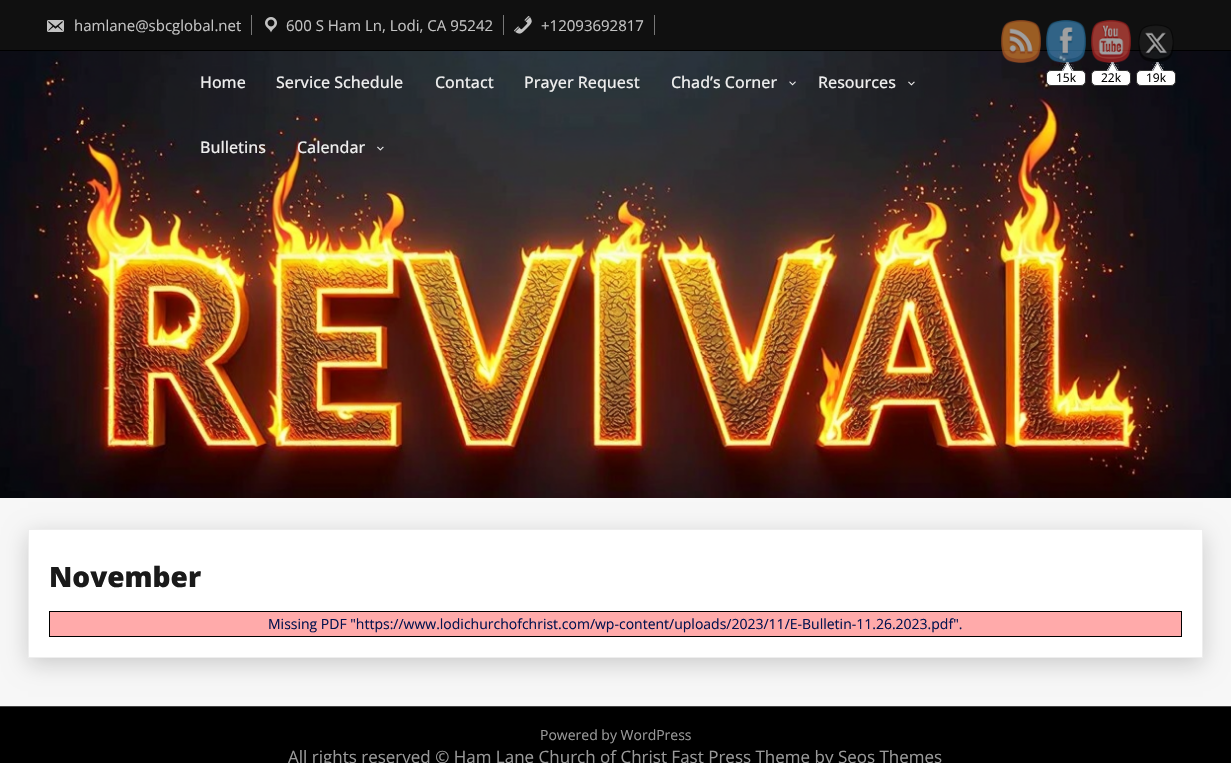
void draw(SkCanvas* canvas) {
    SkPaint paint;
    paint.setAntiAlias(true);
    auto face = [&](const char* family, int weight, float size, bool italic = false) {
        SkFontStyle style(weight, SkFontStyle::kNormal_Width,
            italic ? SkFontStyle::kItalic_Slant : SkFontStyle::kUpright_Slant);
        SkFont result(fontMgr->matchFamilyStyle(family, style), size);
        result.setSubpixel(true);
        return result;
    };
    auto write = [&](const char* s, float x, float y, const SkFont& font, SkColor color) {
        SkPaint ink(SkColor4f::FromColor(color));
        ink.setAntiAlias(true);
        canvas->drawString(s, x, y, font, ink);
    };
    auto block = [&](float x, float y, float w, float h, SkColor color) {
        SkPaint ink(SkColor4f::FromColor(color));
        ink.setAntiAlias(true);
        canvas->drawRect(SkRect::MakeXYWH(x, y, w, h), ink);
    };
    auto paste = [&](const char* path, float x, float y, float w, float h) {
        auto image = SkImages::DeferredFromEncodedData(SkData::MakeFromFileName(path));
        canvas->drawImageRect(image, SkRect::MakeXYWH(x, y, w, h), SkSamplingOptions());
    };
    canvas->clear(SkColorSetRGB(247, 247, 247));
    block(0, 0, 1231, 50, SkColorSetRGB(16, 16, 16));
    block(0, 50, 1231, 1, SK_ColorBLACK);
    block(251, 15, 1, 20, SkColorSetRGB(119, 119, 119));
    paste("pic1.png", 47, 20, 17, 12);
    auto kFont1 = face("Open Sans", 400, 15);
    write("hamlane@sbcglobal.net", 74, 31, kFont1, SkColorSetRGB(195, 195, 195));
    block(503, 15, 1, 20, SkColorSetRGB(119, 119, 119));
    paste("pic2.png", 265, 17, 12, 16);
    write("600 S Ham Ln, Lodi, CA 95242", 286, 31, kFont1, SkColorSetRGB(195, 195, 195));
    block(654, 15, 1, 20, SkColorSetRGB(119, 119, 119));
    paste("pic3.png", 514, 16, 18, 18);
    write("+12093692817", 541, 31, kFont1, SkColorSetRGB(195, 195, 195));
    paste("pic4.png", 0, 51, 1231, 447);
    auto kFont2 = face("Open Sans", 500, 16);
    write("Home", 200, 88, kFont2, SkColorSetRGB(238, 238, 238));
    write("Service Schedule", 276, 88, kFont2, SkColorSetRGB(238, 238, 238));
    write("Contact", 435, 88, kFont2, SkColorSetRGB(238, 238, 238));
    write("Prayer Request", 524, 88, kFont2, SkColorSetRGB(238, 238, 238));
    write("Chad’s Corner", 671, 88, kFont2, SkColorSetRGB(238, 238, 238));
    paste("pic5.png", 789, 81, 7, 5);
    write("Resources", 818, 88, kFont2, SkColorSetRGB(238, 238, 238));
    paste("pic6.png", 908, 81, 7, 5);
    write("Bulletins", 200, 153, kFont2, SkColorSetRGB(238, 238, 238));
    write("Calendar", 297, 153, kFont2, SkColorSetRGB(238, 238, 238));
    paste("pic7.png", 377, 146, 7, 5);
    paste("pic8.png", 1001, 20, 40, 43);
    paste("pic9.png", 1046, 20, 40, 43);
    paint.setColor(SK_ColorWHITE);
    canvas->drawRoundRect(SkRect::MakeXYWH(1046.5f, 70.5f, 39, 15), 4.5f, 4.5f, paint);
    paint.setStyle(SkPaint::kStroke_Style);
    paint.setStrokeWidth(1);
    paint.setColor(SkColorSetRGB(51, 51, 51));
    canvas->drawRoundRect(SkRect::MakeXYWH(1046.5f, 70.5f, 39, 15), 4.5f, 4.5f, paint);
    paste("pic10.png", 1059, 62, 15, 9);
    auto kFont3 = face("Open Sans", 400, 12);
    write("15k", 1056, 82, kFont3, SK_ColorBLACK);
    paste("pic11.png", 1091, 20, 40, 43);
    paint.setStyle(SkPaint::kFill_Style);
    paint.setColor(SK_ColorWHITE);
    canvas->drawRoundRect(SkRect::MakeXYWH(1091.5f, 70.5f, 39, 15), 4.5f, 4.5f, paint);
    paint.setStyle(SkPaint::kStroke_Style);
    paint.setColor(SkColorSetRGB(51, 51, 51));
    canvas->drawRoundRect(SkRect::MakeXYWH(1091.5f, 70.5f, 39, 15), 4.5f, 4.5f, paint);
    paste("pic12.png", 1104, 62, 15, 9);
    write("22k", 1101, 82, kFont3, SK_ColorBLACK);
    paste("pic13.png", 1138, 24, 36, 38);
    paint.setStyle(SkPaint::kFill_Style);
    paint.setColor(SK_ColorWHITE);
    canvas->drawRoundRect(SkRect::MakeXYWH(1136.5f, 70.5f, 39, 15), 4.5f, 4.5f, paint);
    paint.setStyle(SkPaint::kStroke_Style);
    paint.setColor(SkColorSetRGB(51, 51, 51));
    canvas->drawRoundRect(SkRect::MakeXYWH(1136.5f, 70.5f, 39, 15), 4.5f, 4.5f, paint);
    paste("pic14.png", 1149, 62, 15, 9);
    write("19k", 1146, 82, kFont3, SK_ColorBLACK);
    paint.setStyle(SkPaint::kFill_Style);
    paint.setColor(SkColorSetARGB(46, 0, 0, 0));
    paint.setMaskFilter(SkMaskFilter::MakeBlur(kNormal_SkBlurStyle, 11));
    canvas->drawRect(SkRect::MakeXYWH(28, 535, 1175, 129), paint);
    paint.setMaskFilter(nullptr);
    paint.setColor(SK_ColorWHITE);
    canvas->drawRect(SkRect::MakeXYWH(28.5f, 529.5f, 1174, 128), paint);
    paint.setStyle(SkPaint::kStroke_Style);
    paint.setColor(SkColorSetRGB(238, 238, 238));
    canvas->drawRect(SkRect::MakeXYWH(28.5f, 529.5f, 1174, 128), paint);
    auto kFont4 = face("Open Sans", 800, 28);
    write("November", 49, 587, kFont4, SkColorSetRGB(26, 26, 26));
    paint.setColor(SK_ColorBLACK);
    canvas->drawRect(SkRect::MakeXYWH(49.5f, 611.5f, 1132, 25), paint);
    block(50, 612, 1131, 24, SkColorSetRGB(255, 170, 170));
    auto kFont5 = face("Open Sans", 400, 14);
    write("Missing PDF \"https://www.lodichurchofchrist.com/wp-content/uploads/2023/11/E-Bulletin-11.26.2023.pdf\".", 268, 629, kFont5, SkColorSetRGB(4, 19, 78));
    block(0, 706, 1231, 1, SkColorSetRGB(68, 68, 68));
    block(0, 707, 1231, 56, SK_ColorBLACK);
    write("Powered by WordPress", 540, 740, kFont5, SkColorSetRGB(153, 153, 153));
    auto kFont6 = face("Open Sans", 400, 17);
    write("All rights reserved © Ham Lane Church of Christ Fast Press Theme by Seos Themes", 288, 763, kFont6, SkColorSetRGB(153, 153, 153));
}
